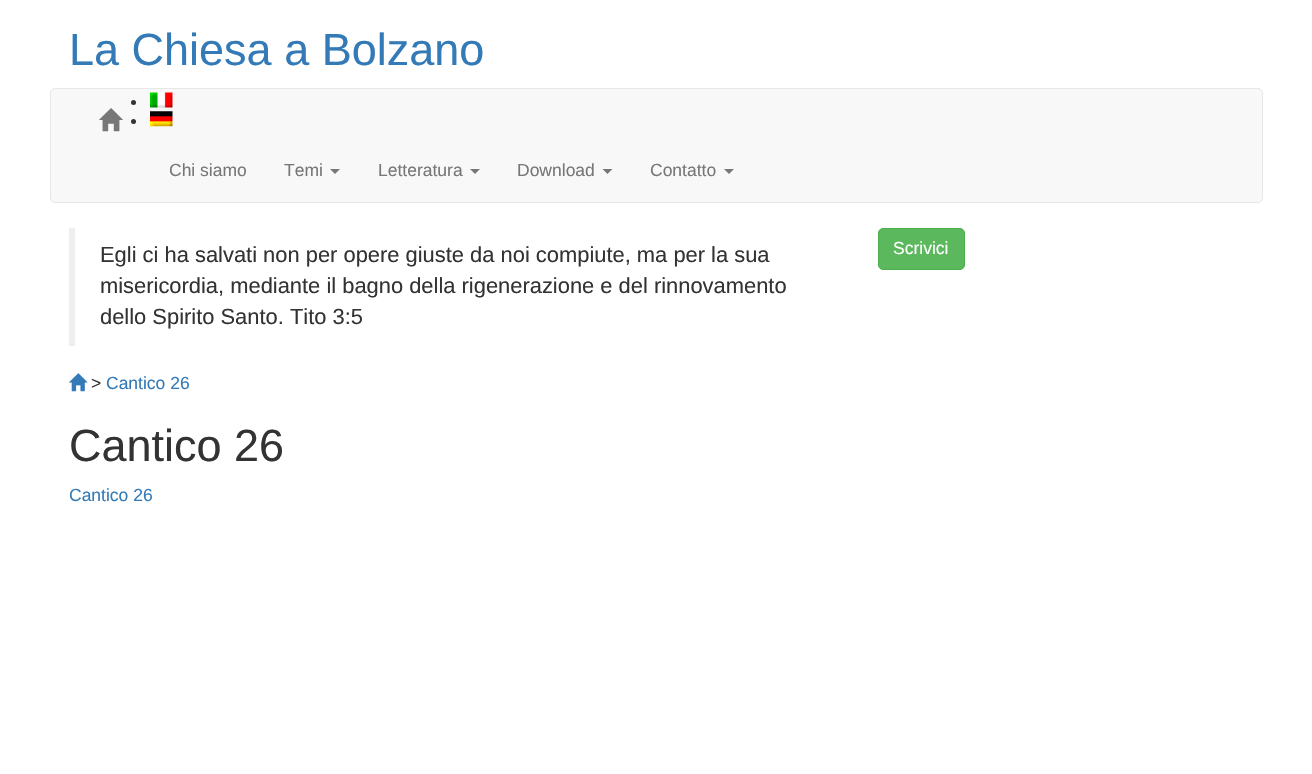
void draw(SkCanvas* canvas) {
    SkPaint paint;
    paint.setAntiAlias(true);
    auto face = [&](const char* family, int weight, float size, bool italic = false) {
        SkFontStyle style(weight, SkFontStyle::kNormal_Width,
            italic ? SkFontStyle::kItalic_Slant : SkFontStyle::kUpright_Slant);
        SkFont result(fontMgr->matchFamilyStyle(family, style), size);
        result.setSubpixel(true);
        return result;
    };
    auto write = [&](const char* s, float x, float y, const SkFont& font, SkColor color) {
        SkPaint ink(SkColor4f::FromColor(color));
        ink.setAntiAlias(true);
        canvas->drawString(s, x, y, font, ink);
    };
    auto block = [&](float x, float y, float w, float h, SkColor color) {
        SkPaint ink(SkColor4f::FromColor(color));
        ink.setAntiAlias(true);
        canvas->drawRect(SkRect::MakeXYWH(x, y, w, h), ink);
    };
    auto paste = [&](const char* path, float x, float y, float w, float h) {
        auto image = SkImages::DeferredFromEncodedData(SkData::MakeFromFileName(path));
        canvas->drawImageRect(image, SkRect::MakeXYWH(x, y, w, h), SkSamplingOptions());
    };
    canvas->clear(SK_ColorWHITE);
    auto kFont1 = face("Liberation Sans", 400, 45);
    write("La Chiesa a Bolzano", 69, 65, kFont1, SkColorSetRGB(51, 122, 183));
    paint.setColor(SkColorSetRGB(248, 248, 248));
    canvas->drawRoundRect(SkRect::MakeXYWH(50.5f, 88.5f, 1212, 114), 4.5f, 4.5f, paint);
    paint.setStyle(SkPaint::kStroke_Style);
    paint.setStrokeWidth(1);
    paint.setColor(SkColorSetRGB(231, 231, 231));
    canvas->drawRoundRect(SkRect::MakeXYWH(50.5f, 88.5f, 1212, 114), 4.5f, 4.5f, paint);
    paste("pic1.png", 99, 108, 24, 24);
    paint.setStyle(SkPaint::kFill_Style);
    paint.setColor(SkColorSetRGB(51, 51, 51));
    canvas->drawCircle(133.5f, 102.5f, 2.5f, paint);
    paste("pic2.png", 150, 92, 23, 16);
    canvas->drawCircle(133.5f, 121.5f, 2.5f, paint);
    paste("pic3.png", 150, 111, 23, 16);
    auto kFont2 = face("Liberation Sans", 400, 17.5f);
    write("Chi siamo", 169, 176, kFont2, SkColorSetRGB(119, 119, 119));
    write("Temi", 284, 176, kFont2, SkColorSetRGB(119, 119, 119));
    paint.setColor(SkColorSetRGB(119, 119, 119));
    canvas->drawPath(SkPathBuilder().moveTo(330, 169).lineTo(340, 169).lineTo(335, 174).close().detach(), paint);
    write("Letteratura", 378, 176, kFont2, SkColorSetRGB(119, 119, 119));
    canvas->drawPath(SkPathBuilder().moveTo(470, 169).lineTo(480, 169).lineTo(475, 174).close().detach(), paint);
    write("Download", 517, 176, kFont2, SkColorSetRGB(119, 119, 119));
    canvas->drawPath(SkPathBuilder().moveTo(602.5f, 169).lineTo(612.5f, 169).lineTo(607.5f, 174).close().detach(), paint);
    write("Contatto", 650, 176, kFont2, SkColorSetRGB(119, 119, 119));
    canvas->drawPath(SkPathBuilder().moveTo(724, 169).lineTo(734, 169).lineTo(729, 174).close().detach(), paint);
    block(69, 228, 6, 118, SkColorSetRGB(238, 238, 238));
    auto kFont3 = face("Liberation Sans", 400, 21.9f);
    write("Egli ci ha salvati non per opere giuste da noi compiute, ma per la sua", 100, 262, kFont3, SkColorSetRGB(51, 51, 51));
    write("misericordia, mediante il bagno della rigenerazione e del rinnovamento", 100, 293, kFont3, SkColorSetRGB(51, 51, 51));
    write("dello Spirito Santo. Tito 3:5", 100, 324, kFont3, SkColorSetRGB(51, 51, 51));
    paint.setColor(SkColorSetRGB(92, 184, 92));
    canvas->drawRoundRect(SkRect::MakeXYWH(878.5f, 228.5f, 86, 41), 4.5f, 4.5f, paint);
    paint.setStyle(SkPaint::kStroke_Style);
    paint.setColor(SkColorSetRGB(76, 174, 76));
    canvas->drawRoundRect(SkRect::MakeXYWH(878.5f, 228.5f, 86, 41), 4.5f, 4.5f, paint);
    write("Scrivici", 893, 254, kFont2, SK_ColorWHITE);
    paste("pic4.png", 69, 373, 19, 19);
    write(">", 91, 389, kFont2, SkColorSetRGB(51, 51, 51));
    write("Cantico 26", 106, 389, kFont2, SkColorSetRGB(51, 122, 183));
    write("Cantico 26", 69, 461, kFont1, SkColorSetRGB(51, 51, 51));
    write("Cantico 26", 69, 501, kFont2, SkColorSetRGB(51, 122, 183));
}
